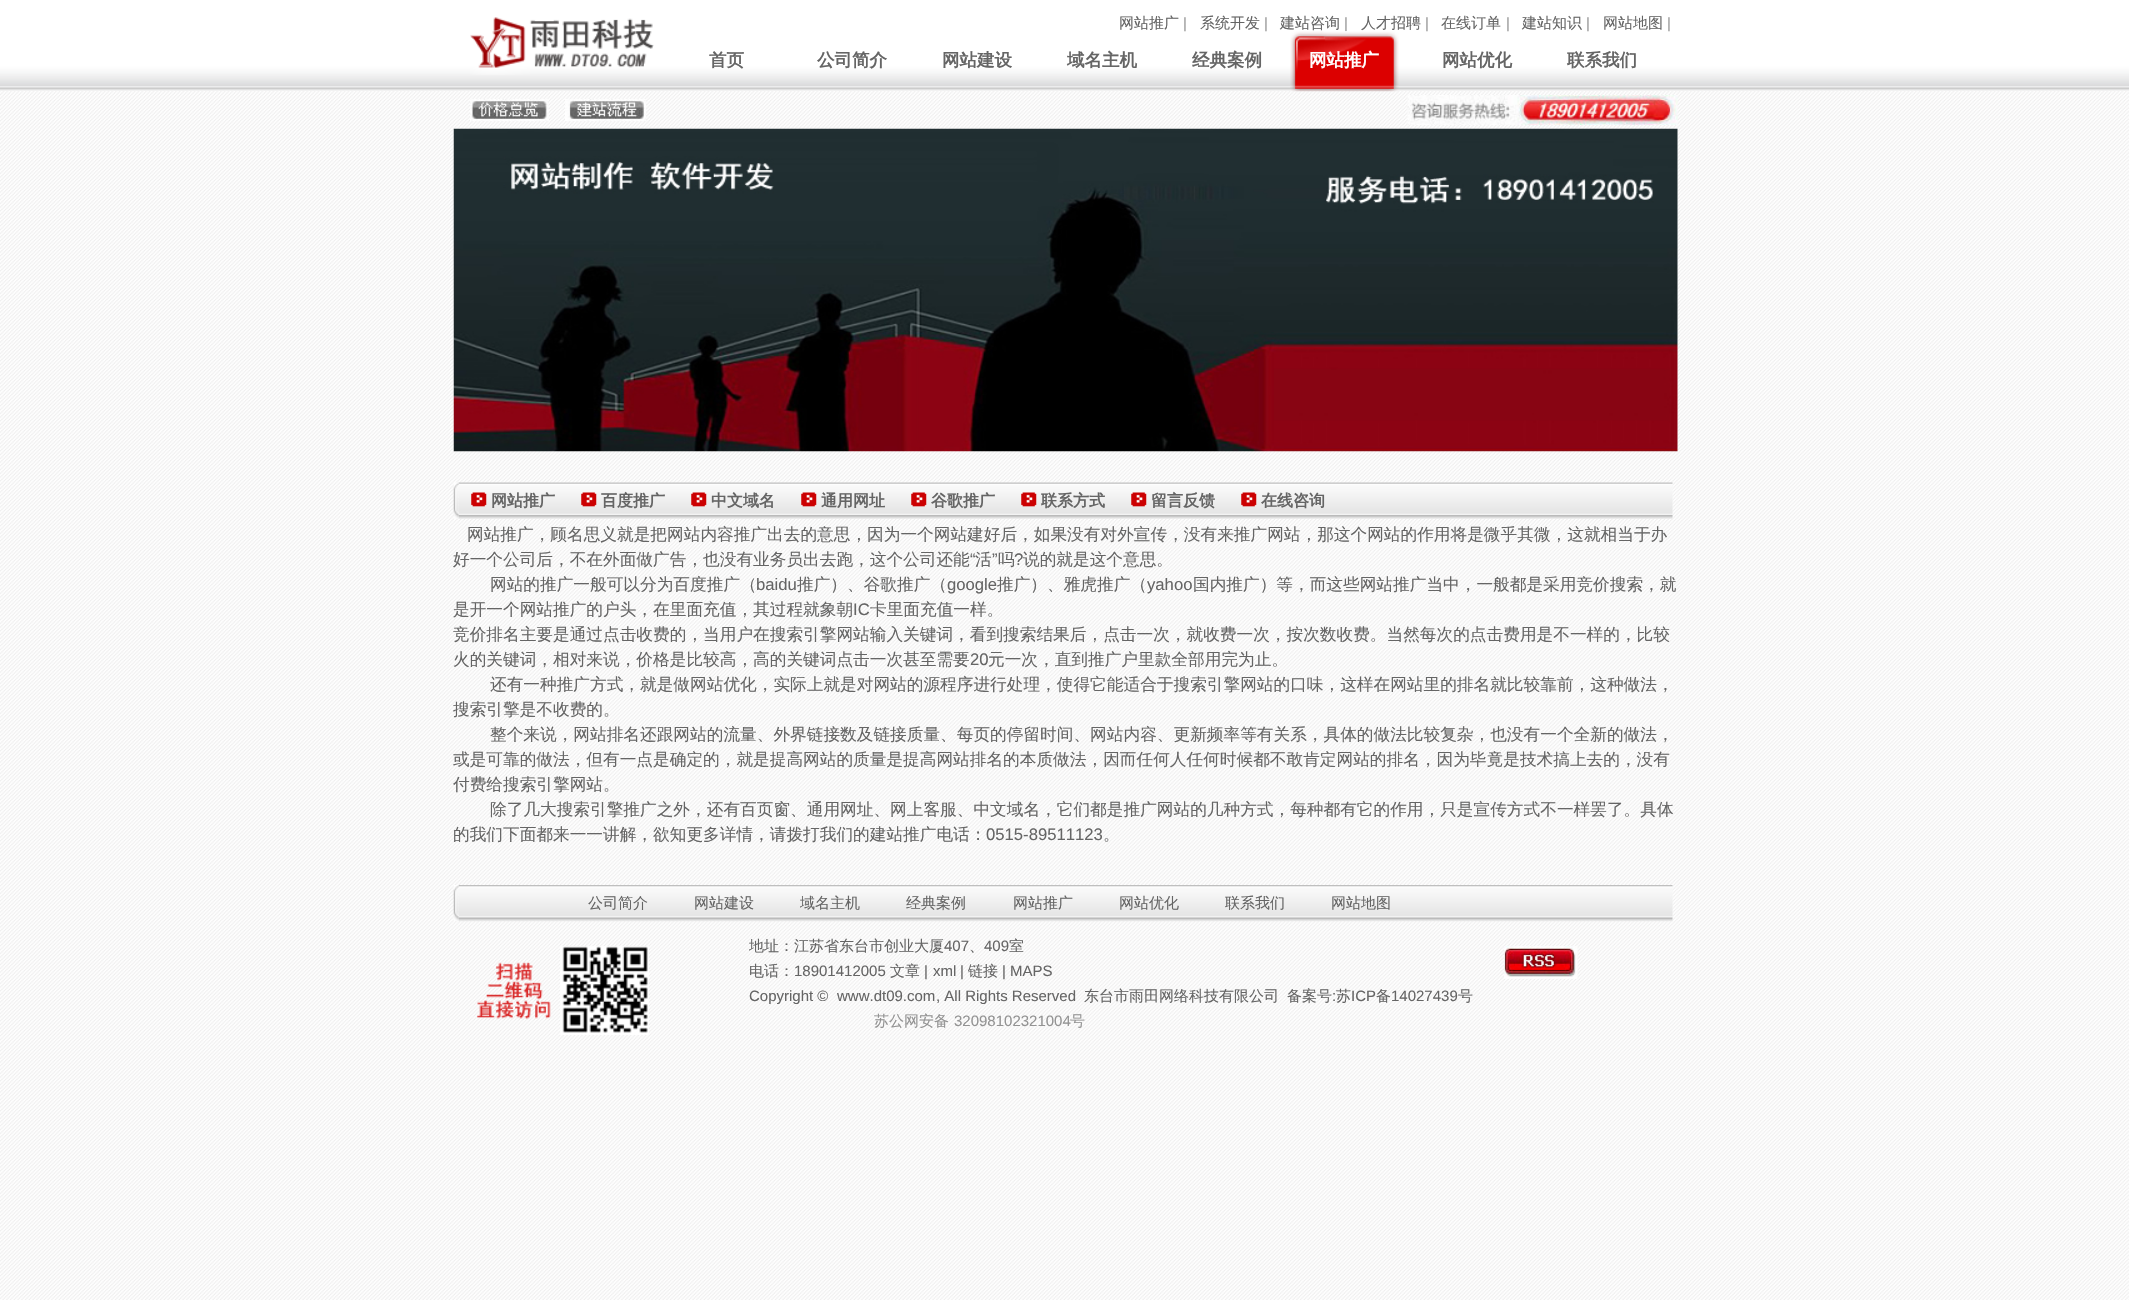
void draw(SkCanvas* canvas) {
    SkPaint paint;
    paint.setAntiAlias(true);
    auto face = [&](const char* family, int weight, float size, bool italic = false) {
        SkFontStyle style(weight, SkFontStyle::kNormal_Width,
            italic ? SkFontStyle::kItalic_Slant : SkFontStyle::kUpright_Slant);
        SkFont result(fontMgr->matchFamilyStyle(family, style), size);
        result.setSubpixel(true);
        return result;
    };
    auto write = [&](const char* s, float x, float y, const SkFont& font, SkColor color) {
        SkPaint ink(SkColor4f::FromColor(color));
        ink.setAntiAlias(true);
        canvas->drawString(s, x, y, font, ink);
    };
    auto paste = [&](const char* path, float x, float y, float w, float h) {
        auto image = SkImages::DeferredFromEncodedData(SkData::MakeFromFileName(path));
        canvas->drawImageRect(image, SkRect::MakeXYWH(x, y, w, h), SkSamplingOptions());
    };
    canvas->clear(SK_ColorWHITE);
    paste("pic1.png", 0, 91, 2129, 1209);
    paste("pic2.png", 0, 0, 2129, 91);
    paste("pic3.png", 470, 17, 184, 58);
    auto kFont1 = face("WenQuanYi Zen Hei", 500, 15);
    write("网站推广", 1119, 28, kFont1, SkColorSetRGB(101, 101, 101));
    auto kFont2 = face("Liberation Sans", 400, 15);
    write("|", 1183, 28, kFont2, SkColorSetRGB(153, 153, 153));
    write("系统开发", 1200, 28, kFont1, SkColorSetRGB(101, 101, 101));
    write("|", 1264, 28, kFont2, SkColorSetRGB(153, 153, 153));
    write("建站咨询", 1280, 28, kFont1, SkColorSetRGB(101, 101, 101));
    write("|", 1344, 28, kFont2, SkColorSetRGB(153, 153, 153));
    write("人才招聘", 1361, 28, kFont1, SkColorSetRGB(101, 101, 101));
    write("|", 1425, 28, kFont2, SkColorSetRGB(153, 153, 153));
    write("在线订单", 1441, 28, kFont1, SkColorSetRGB(101, 101, 101));
    write("|", 1506, 28, kFont2, SkColorSetRGB(153, 153, 153));
    write("建站知识", 1522, 28, kFont1, SkColorSetRGB(101, 101, 101));
    write("|", 1586, 28, kFont2, SkColorSetRGB(153, 153, 153));
    write("网站地图", 1603, 28, kFont1, SkColorSetRGB(101, 101, 101));
    write("|", 1667, 28, kFont2, SkColorSetRGB(153, 153, 153));
    auto kFont3 = face("WenQuanYi Zen Hei", 700, 17.5f);
    write("首页", 709, 66, kFont3, SkColorSetRGB(101, 101, 101));
    write("公司简介", 817, 66, kFont3, SkColorSetRGB(101, 101, 101));
    write("网站建设", 942, 66, kFont3, SkColorSetRGB(101, 101, 101));
    write("域名主机", 1067, 66, kFont3, SkColorSetRGB(101, 101, 101));
    write("经典案例", 1192, 66, kFont3, SkColorSetRGB(101, 101, 101));
    paste("pic4.png", 1290, 31, 109, 61);
    write("网站推广", 1309, 66, kFont3, SK_ColorWHITE);
    write("网站优化", 1442, 66, kFont3, SkColorSetRGB(101, 101, 101));
    write("联系我们", 1567, 66, kFont3, SkColorSetRGB(101, 101, 101));
    paste("pic5.png", 1407, 95, 271, 30);
    paste("pic6.png", 470, 99, 79, 22);
    paste("pic7.png", 565, 99, 81, 22);
    paste("pic8.png", 453, 128, 1225, 324);
    paste("pic9.png", 453, 482, 6, 37);
    paste("pic10.png", 458, 482, 1215, 37);
    paste("pic11.png", 471, 492, 16, 15);
    auto kFont4 = face("WenQuanYi Zen Hei", 700, 16);
    write("网站推广", 491, 506, kFont4, SkColorSetRGB(101, 101, 101));
    paste("pic11.png", 581, 492, 16, 15);
    write("百度推广", 601, 506, kFont4, SkColorSetRGB(101, 101, 101));
    paste("pic11.png", 691, 492, 16, 15);
    write("中文域名", 711, 506, kFont4, SkColorSetRGB(101, 101, 101));
    paste("pic12.png", 801, 492, 16, 15);
    write("通用网址", 821, 506, kFont4, SkColorSetRGB(101, 101, 101));
    paste("pic12.png", 911, 492, 16, 15);
    write("谷歌推广", 931, 506, kFont4, SkColorSetRGB(101, 101, 101));
    paste("pic11.png", 1021, 492, 16, 15);
    write("联系方式", 1041, 506, kFont4, SkColorSetRGB(101, 101, 101));
    paste("pic12.png", 1131, 492, 16, 15);
    write("留言反馈", 1151, 506, kFont4, SkColorSetRGB(101, 101, 101));
    paste("pic11.png", 1241, 492, 16, 15);
    write("在线咨询", 1261, 506, kFont4, SkColorSetRGB(101, 101, 101));
    auto kFont5 = face("WenQuanYi Zen Hei", 500, 16.67f);
    write("网站推广，顾名思义就是把网站内容推广出去的意思，因为一个网站建好后，如果没有对外宣传，没有来推广网站，那这个网站的作用将是微乎其微，这就相当于办", 467, 540, kFont5, SkColorSetRGB(101, 101, 101));
    write("好一个公司后，不在外面做广告，也没有业务员出去跑，这个公司还能", 453, 565, kFont5, SkColorSetRGB(101, 101, 101));
    auto kFont6 = face("Liberation Sans", 400, 16.67f);
    write("“", 970, 565, kFont6, SkColorSetRGB(101, 101, 101));
    write("活", 975, 565, kFont5, SkColorSetRGB(101, 101, 101));
    write("”", 992, 565, kFont6, SkColorSetRGB(101, 101, 101));
    write("吗", 998, 565, kFont5, SkColorSetRGB(101, 101, 101));
    write("?", 1014, 565, kFont6, SkColorSetRGB(101, 101, 101));
    write("说的就是这个意思。", 1023, 565, kFont5, SkColorSetRGB(101, 101, 101));
    write("网站的推广一般可以分为百度推广（", 490, 590, kFont5, SkColorSetRGB(101, 101, 101));
    write("baidu", 756, 590, kFont6, SkColorSetRGB(101, 101, 101));
    write("推广）、谷歌推广（", 797, 590, kFont5, SkColorSetRGB(101, 101, 101));
    write("google", 947, 590, kFont6, SkColorSetRGB(101, 101, 101));
    write("推广）、雅虎推广（", 997, 590, kFont5, SkColorSetRGB(101, 101, 101));
    write("yahoo", 1147, 590, kFont6, SkColorSetRGB(101, 101, 101));
    write("国内推广）等，而这些网站推广当中，一般都是采用竞价搜索，就", 1193, 590, kFont5, SkColorSetRGB(101, 101, 101));
    write("是开一个网站推广的户头，在里面充值，其过程就象朝", 453, 615, kFont5, SkColorSetRGB(101, 101, 101));
    write("IC", 853, 615, kFont6, SkColorSetRGB(101, 101, 101));
    write("卡里面充值一样。", 870, 615, kFont5, SkColorSetRGB(101, 101, 101));
    write("竞价排名主要是通过点击收费的，当用户在搜索引擎网站输入关键词，看到搜索结果后，点击一次，就收费一次，按次数收费。当然每次的点击费用是不一样的，比较", 453, 640, kFont5, SkColorSetRGB(101, 101, 101));
    write("火的关键词，相对来说，价格是比较高，高的关键词点击一次甚至需要", 453, 665, kFont5, SkColorSetRGB(101, 101, 101));
    write("20", 970, 665, kFont6, SkColorSetRGB(101, 101, 101));
    write("元一次，直到推广户里款全部用完为止。", 988, 665, kFont5, SkColorSetRGB(101, 101, 101));
    write("还有一种推广方式，就是做网站优化，实际上就是对网站的源程序进行处理，使得它能适合于搜索引擎网站的口味，这样在网站里的排名就比较靠前，这种做法，", 490, 690, kFont5, SkColorSetRGB(101, 101, 101));
    write("搜索引擎是不收费的。", 453, 715, kFont5, SkColorSetRGB(101, 101, 101));
    write("整个来说，网站排名还跟网站的流量、外界链接数及链接质量、每页的停留时间、网站内容、更新频率等有关系，具体的做法比较复杂，也没有一个全新的做法，", 490, 740, kFont5, SkColorSetRGB(101, 101, 101));
    write("或是可靠的做法，但有一点是确定的，就是提高网站的质量是提高网站排名的本质做法，因而任何人任何时候都不敢肯定网站的排名，因为毕竟是技术搞上去的，没有", 453, 765, kFont5, SkColorSetRGB(101, 101, 101));
    write("付费给搜索引擎网站。", 453, 790, kFont5, SkColorSetRGB(101, 101, 101));
    write("除了几大搜索引擎推广之外，还有百页窗、通用网址、网上客服、中文域名，它们都是推广网站的几种方式，每种都有它的作用，只是宣传方式不一样罢了。具体", 490, 815, kFont5, SkColorSetRGB(101, 101, 101));
    write("的我们下面都来一一讲解，欲知更多详情，请拨打我们的建站推广电话：", 453, 840, kFont5, SkColorSetRGB(101, 101, 101));
    write("0515-89511123", 986, 840, kFont6, SkColorSetRGB(101, 101, 101));
    write("。", 1103, 840, kFont5, SkColorSetRGB(101, 101, 101));
    paste("pic13.png", 453, 885, 6, 36);
    paste("pic14.png", 458, 885, 1215, 37);
    write("公司简介", 588, 908, kFont1, SkColorSetRGB(101, 101, 101));
    write("网站建设", 694, 908, kFont1, SkColorSetRGB(101, 101, 101));
    write("域名主机", 800, 908, kFont1, SkColorSetRGB(101, 101, 101));
    write("经典案例", 906, 908, kFont1, SkColorSetRGB(101, 101, 101));
    write("网站推广", 1013, 908, kFont1, SkColorSetRGB(101, 101, 101));
    write("网站优化", 1119, 908, kFont1, SkColorSetRGB(101, 101, 101));
    write("联系我们", 1225, 908, kFont1, SkColorSetRGB(101, 101, 101));
    write("网站地图", 1331, 908, kFont1, SkColorSetRGB(101, 101, 101));
    paste("pic15.png", 477, 946, 172, 89);
    write("地址：江苏省东台市创业大厦", 749, 951, kFont1, SkColorSetRGB(101, 101, 101));
    write("407", 944, 951, kFont2, SkColorSetRGB(101, 101, 101));
    write("、", 969, 951, kFont1, SkColorSetRGB(101, 101, 101));
    write("409", 984, 951, kFont2, SkColorSetRGB(101, 101, 101));
    write("室", 1009, 951, kFont1, SkColorSetRGB(101, 101, 101));
    paste("pic16.png", 1504, 946, 74, 33);
    write("电话：", 749, 976, kFont1, SkColorSetRGB(101, 101, 101));
    write("18901412005", 794, 976, kFont2, SkColorSetRGB(101, 101, 101));
    write("文章", 890, 976, kFont1, SkColorSetRGB(101, 101, 101));
    write("|", 924, 976, kFont2, SkColorSetRGB(101, 101, 101));
    write("xml", 933, 976, kFont2, SkColorSetRGB(101, 101, 101));
    write("|", 960, 976, kFont2, SkColorSetRGB(101, 101, 101));
    write("链接", 968, 976, kFont1, SkColorSetRGB(101, 101, 101));
    write("|", 1002, 976, kFont2, SkColorSetRGB(101, 101, 101));
    write("MAPS", 1010, 976, kFont2, SkColorSetRGB(101, 101, 101));
    write("Copyright ©", 749, 1001, kFont2, SkColorSetRGB(101, 101, 101));
    write("www.dt09.com", 837, 1001, kFont2, SkColorSetRGB(101, 101, 101));
    write(", All Rights Reserved", 936, 1001, kFont2, SkColorSetRGB(101, 101, 101));
    write("东台市雨田网络科技有限公司", 1084, 1001, kFont1, SkColorSetRGB(101, 101, 101));
    write("备案号", 1287, 1001, kFont1, SkColorSetRGB(101, 101, 101));
    write(":", 1332, 1001, kFont2, SkColorSetRGB(101, 101, 101));
    write("苏", 1336, 1001, kFont1, SkColorSetRGB(101, 101, 101));
    write("ICP", 1351, 1001, kFont2, SkColorSetRGB(101, 101, 101));
    write("备", 1376, 1001, kFont1, SkColorSetRGB(101, 101, 101));
    write("14027439", 1391, 1001, kFont2, SkColorSetRGB(101, 101, 101));
    write("号", 1458, 1001, kFont1, SkColorSetRGB(101, 101, 101));
    write("苏公网安备", 874, 1026, kFont1, SkColorSetRGB(147, 147, 147));
    write("32098102321004", 954, 1026, kFont2, SkColorSetRGB(147, 147, 147));
    write("号", 1070, 1026, kFont1, SkColorSetRGB(147, 147, 147));
}
